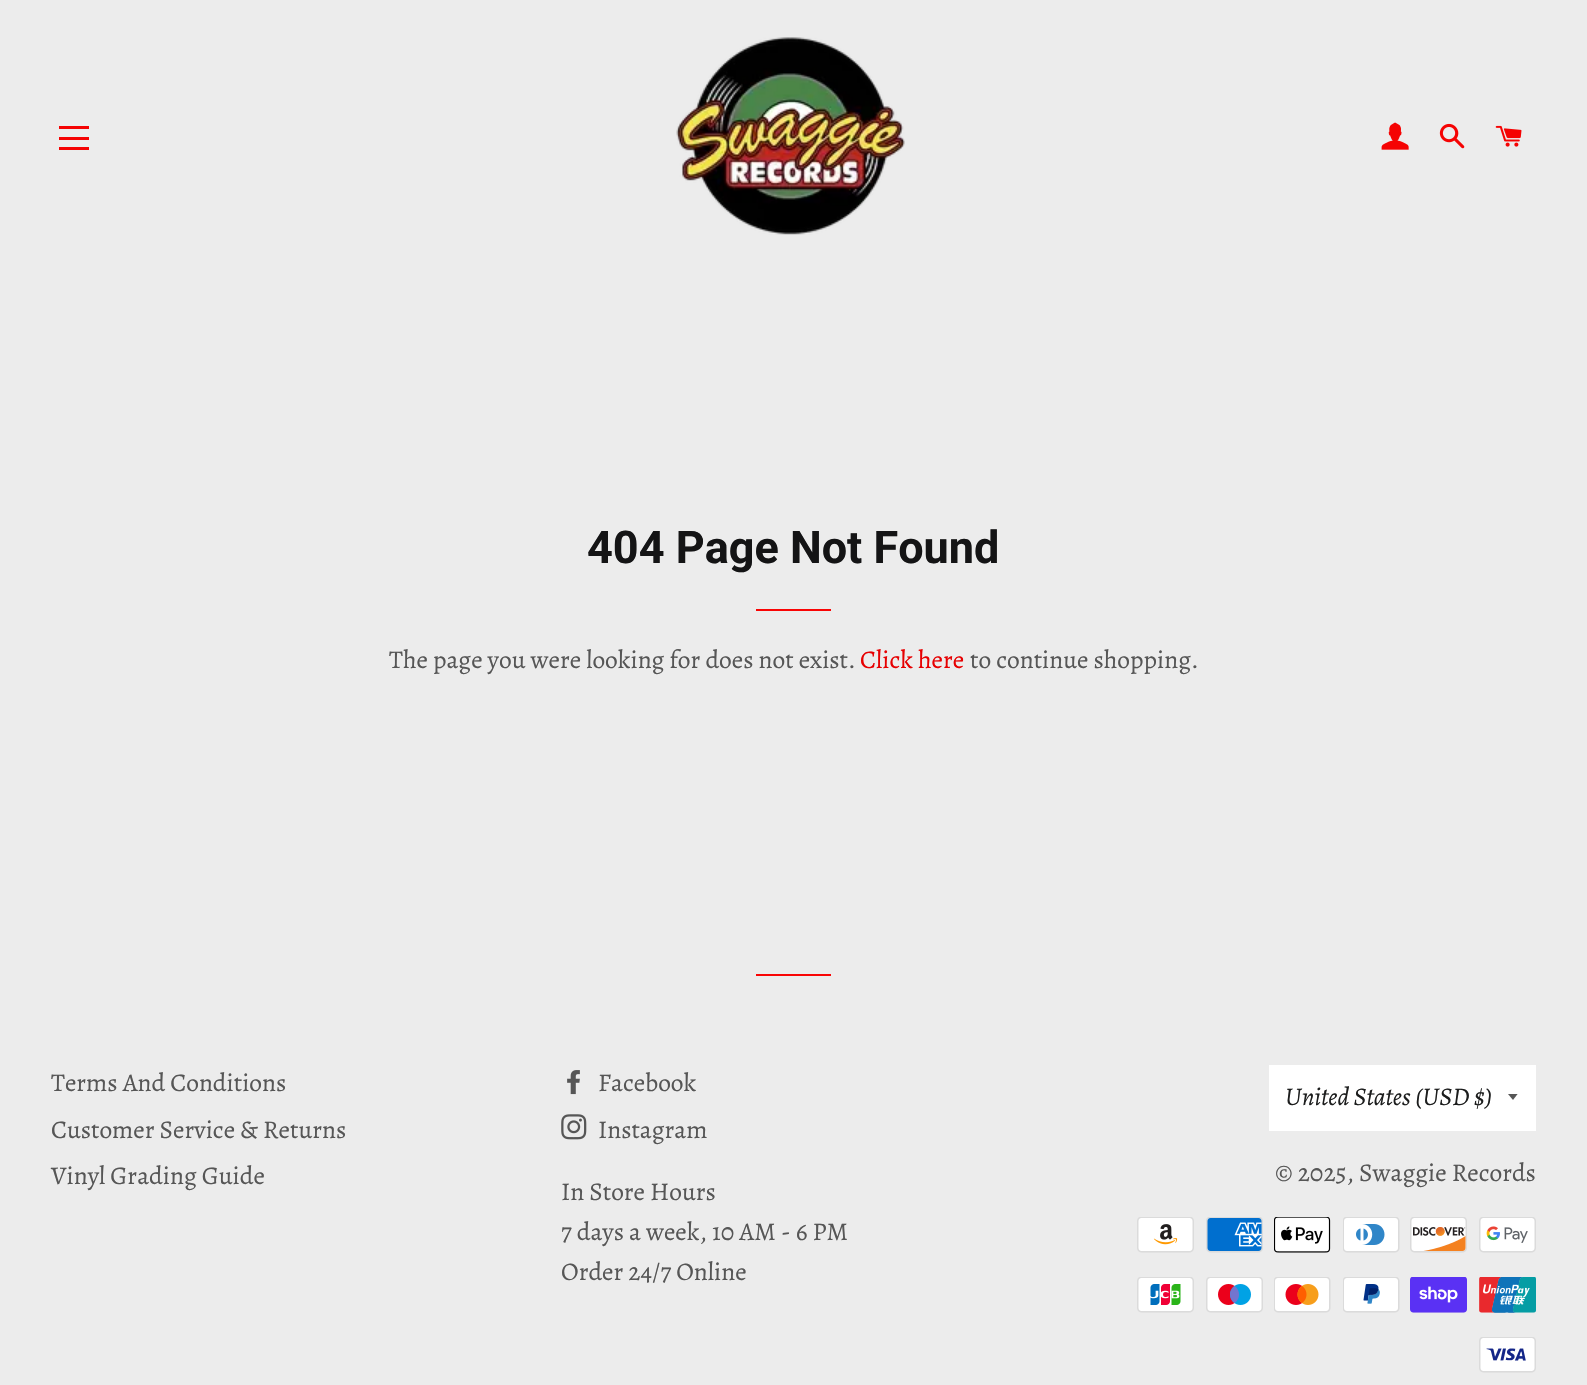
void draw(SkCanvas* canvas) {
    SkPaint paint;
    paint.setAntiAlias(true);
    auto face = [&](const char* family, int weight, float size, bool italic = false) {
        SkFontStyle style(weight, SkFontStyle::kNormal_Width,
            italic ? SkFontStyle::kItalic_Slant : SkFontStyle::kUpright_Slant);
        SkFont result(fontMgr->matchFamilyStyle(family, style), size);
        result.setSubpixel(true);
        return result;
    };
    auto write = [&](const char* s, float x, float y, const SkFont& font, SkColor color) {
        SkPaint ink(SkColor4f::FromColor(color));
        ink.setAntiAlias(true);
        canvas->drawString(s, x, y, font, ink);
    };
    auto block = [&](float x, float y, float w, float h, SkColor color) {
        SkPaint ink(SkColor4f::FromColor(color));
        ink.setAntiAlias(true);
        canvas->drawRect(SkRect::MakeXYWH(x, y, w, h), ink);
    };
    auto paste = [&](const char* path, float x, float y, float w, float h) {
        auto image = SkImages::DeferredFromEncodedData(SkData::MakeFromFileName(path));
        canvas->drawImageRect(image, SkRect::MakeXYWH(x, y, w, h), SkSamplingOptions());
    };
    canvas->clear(SkColorSetRGB(236, 236, 236));
    block(59, 126, 30, 3, SkColorSetRGB(245, 3, 3));
    block(59, 137, 30, 3, SkColorSetRGB(245, 3, 3));
    block(59, 147, 30, 3, SkColorSetRGB(245, 3, 3));
    paste("pic1.png", 676, 37, 229, 198);
    paste("pic2.png", 1381, 122, 28, 28);
    paste("pic3.png", 1439, 123, 26, 26);
    paste("pic4.png", 1495, 125, 27, 22);
    auto kFont1 = face("Roboto", 700, 45);
    write("404 Page Not Found", 587, 563, kFont1, SkColorSetRGB(20, 20, 21));
    block(756, 609, 75, 2, SkColorSetRGB(249, 5, 5));
    auto kFont2 = face("Alegreya", 400, 25.5f);
    write("The page you were looking for does not exist.", 389, 668, kFont2, SkColorSetRGB(86, 86, 86));
    write("Click here", 860, 668, kFont2, SkColorSetRGB(231, 0, 1));
    write("to continue shopping.", 970, 668, kFont2, SkColorSetRGB(86, 86, 86));
    block(756, 974, 75, 2, SkColorSetRGB(249, 5, 5));
    write("Terms And Conditions", 51, 1091, kFont2, SkColorSetRGB(86, 86, 86));
    write("Customer Service & Returns", 51, 1138, kFont2, SkColorSetRGB(86, 86, 86));
    write("Vinyl Grading Guide", 51, 1184, kFont2, SkColorSetRGB(86, 86, 86));
    paste("pic5.png", 567, 1070, 13, 25);
    write("Facebook", 598, 1091, kFont2, SkColorSetRGB(86, 86, 86));
    paste("pic6.png", 561, 1114, 26, 26);
    write("Instagram", 598, 1138, kFont2, SkColorSetRGB(86, 86, 86));
    write("In Store Hours", 561, 1200, kFont2, SkColorSetRGB(86, 86, 86));
    write("7 days a week, 10 AM - 6 PM", 561, 1240, kFont2, SkColorSetRGB(86, 86, 86));
    write("Order 24/7 Online", 561, 1280, kFont2, SkColorSetRGB(86, 86, 86));
    block(1269, 1065, 267, 66, SK_ColorWHITE);
    canvas->save();
    canvas->clipRect(SkRect::MakeXYWH(1508, 1094, 12, 7));
    paint.setColor(SkColorSetRGB(86, 86, 86));
    canvas->drawPath(SkPathBuilder().moveTo(1507.5f, 1093.5f).lineTo(1513, 1100).lineTo(1518, 1093.5f).close().detach(), paint);
    canvas->restore();
    auto kFont3 = face("Alegreya", 400, 25.5f, true);
    write("United States (USD $)", 1285, 1105, kFont3, SkColorSetRGB(28, 29, 29));
    write("© 2025, Swaggie Records", 1275, 1181, kFont2, SkColorSetRGB(86, 86, 86));
    paste("pic7.png", 1137, 1217, 57, 36);
    paste("pic8.png", 1206, 1217, 57, 36);
    paste("pic9.png", 1274, 1217, 57, 36);
    paste("pic10.png", 1343, 1217, 57, 36);
    paste("pic11.png", 1410, 1217, 57, 36);
    paste("pic12.png", 1479, 1217, 57, 36);
    paste("pic13.png", 1137, 1277, 57, 36);
    paste("pic14.png", 1206, 1277, 57, 36);
    paste("pic15.png", 1274, 1277, 57, 36);
    paste("pic16.png", 1343, 1277, 57, 36);
    paste("pic17.png", 1410, 1277, 57, 36);
    paste("pic18.png", 1479, 1277, 57, 36);
    paste("pic19.png", 1479, 1337, 57, 36);
}
